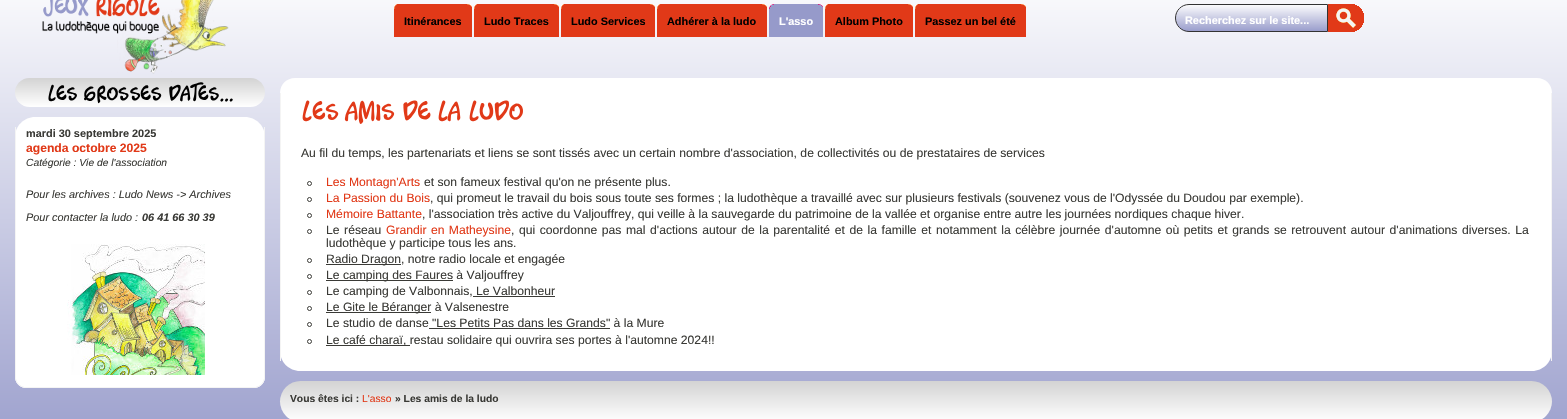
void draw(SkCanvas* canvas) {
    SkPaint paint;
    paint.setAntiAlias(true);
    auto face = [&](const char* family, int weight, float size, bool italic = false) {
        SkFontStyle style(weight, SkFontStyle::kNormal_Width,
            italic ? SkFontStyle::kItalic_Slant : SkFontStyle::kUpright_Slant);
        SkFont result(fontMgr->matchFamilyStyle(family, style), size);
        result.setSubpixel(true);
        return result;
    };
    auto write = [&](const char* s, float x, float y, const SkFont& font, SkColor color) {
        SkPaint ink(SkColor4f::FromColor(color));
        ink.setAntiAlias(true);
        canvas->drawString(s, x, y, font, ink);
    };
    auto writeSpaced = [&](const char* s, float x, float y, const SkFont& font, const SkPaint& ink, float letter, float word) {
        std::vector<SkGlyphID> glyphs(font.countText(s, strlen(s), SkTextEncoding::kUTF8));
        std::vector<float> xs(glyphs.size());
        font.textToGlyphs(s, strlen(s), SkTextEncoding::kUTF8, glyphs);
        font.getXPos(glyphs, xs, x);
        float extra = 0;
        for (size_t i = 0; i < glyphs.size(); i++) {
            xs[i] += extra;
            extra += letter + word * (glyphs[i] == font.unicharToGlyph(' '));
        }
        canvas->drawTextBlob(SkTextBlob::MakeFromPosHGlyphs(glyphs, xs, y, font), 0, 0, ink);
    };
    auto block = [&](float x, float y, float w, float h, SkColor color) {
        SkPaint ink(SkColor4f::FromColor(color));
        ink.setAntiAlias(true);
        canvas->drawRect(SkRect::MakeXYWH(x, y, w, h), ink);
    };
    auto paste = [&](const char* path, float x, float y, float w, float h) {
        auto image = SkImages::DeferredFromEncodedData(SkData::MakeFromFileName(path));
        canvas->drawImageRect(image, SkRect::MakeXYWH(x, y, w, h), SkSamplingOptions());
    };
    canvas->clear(SK_ColorWHITE);
    {
        const SkColor colors[] = {SK_ColorWHITE, SkColorSetRGB(150, 154, 202)};
        const float stops[] = {0, 1};
        const SkPoint ends[] = {{784, -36}, {784, 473}};
        paint.setShader(SkGradientShader::MakeLinear(ends, colors, stops, 2, SkTileMode::kClamp));
        paint.setAlpha(255);
    }
    canvas->drawRect(SkRect::MakeXYWH(0, 0, 1567, 419), paint);
    paste("pic1.png", 42, 0, 187, 74);
    paste("pic2.png", 447, 4, 25, 33);
    paste("pic3.png", 394, 4, 53, 33);
    auto kFont1 = face("Liberation Sans", 700, 10.9f);
    write("Itinérances", 404, 25, kFont1, SK_ColorBLACK);
    paste("pic4.png", 535, 4, 24, 33);
    paste("pic5.png", 474, 4, 61, 33);
    write("Ludo Traces", 484, 25, kFont1, SK_ColorBLACK);
    paste("pic4.png", 631, 4, 24, 33);
    paste("pic6.png", 561, 4, 70, 33);
    write("Ludo Services", 571, 25, kFont1, SK_ColorBLACK);
    paste("pic2.png", 742, 4, 25, 33);
    paste("pic7.png", 657, 4, 85, 33);
    write("Adhérer à la ludo", 667, 25, kFont1, SK_ColorBLACK);
    paste("pic8.png", 799, 4, 24, 33);
    paste("pic9.png", 769, 4, 30, 33);
    write("L'asso", 779, 25, kFont1, SK_ColorWHITE);
    paste("pic4.png", 889, 4, 24, 33);
    paste("pic10.png", 825, 4, 64, 33);
    write("Album Photo", 835, 25, kFont1, SK_ColorBLACK);
    paste("pic4.png", 1002, 4, 24, 33);
    paste("pic11.png", 915, 4, 87, 33);
    write("Passez un bel été", 925, 25, kFont1, SK_ColorBLACK);
    {
        const SkColor colors[] = {SK_ColorWHITE, SkColorSetRGB(150, 154, 202)};
        const float stops[] = {0, 1};
        const SkPoint ends[] = {{1252, 4}, {1252, 32}};
        paint.setShader(SkGradientShader::MakeLinear(ends, colors, stops, 2, SkTileMode::kClamp));
        paint.setAlpha(255);
    }
    canvas->drawPath(SkPathBuilder().moveTo(1189, 4.5f).lineTo(1327.5f, 4.5f).lineTo(1327.5f, 31.5f).lineTo(1189, 31.5f).cubicTo(1181.5f, 31.5f, 1175.5f, 25.5f, 1175.5f, 18).cubicTo(1175.5f, 10.5f, 1181.5f, 4.5f, 1189, 4.5f).close().detach(), paint);
    paint.setStyle(SkPaint::kStroke_Style);
    paint.setStrokeWidth(1);
    paint.setShader(nullptr);
    paint.setColor(SkColorSetRGB(51, 51, 51));
    canvas->drawPath(SkPathBuilder().moveTo(1189, 4.5f).lineTo(1327.5f, 4.5f).lineTo(1327.5f, 31.5f).lineTo(1189, 31.5f).cubicTo(1181.5f, 31.5f, 1175.5f, 25.5f, 1175.5f, 18).cubicTo(1175.5f, 10.5f, 1181.5f, 4.5f, 1189, 4.5f).close().detach(), paint);
    write("Recherchez sur le site...", 1185, 24, kFont1, SK_ColorWHITE);
    paste("pic12.png", 1328, 4, 36, 28);
    paint.setStyle(SkPaint::kFill_Style);
    {
        const SkColor colors[] = {SkColorSetRGB(211, 211, 211), SK_ColorWHITE};
        const float stops[] = {0, 1};
        const SkPoint ends[] = {{140, 78}, {140, 107}};
        paint.setShader(SkGradientShader::MakeLinear(ends, colors, stops, 2, SkTileMode::kClamp));
        paint.setAlpha(255);
    }
    canvas->drawRoundRect(SkRect::MakeXYWH(15, 78, 250, 29), 14.5f, 14.5f, paint);
    paste("pic13.png", 48, 84, 29, 18);
    paste("pic14.png", 84, 85, 78, 19);
    paste("pic15.png", 169, 82, 64, 20);
    paint.setShader(nullptr);
    paint.setColor(SK_ColorWHITE);
    canvas->drawPath(SkPathBuilder().moveTo(35, 117).lineTo(245, 117).cubicTo(256, 117, 265, 126, 265, 137).lineTo(265, 378).lineTo(15, 378).lineTo(15, 137).cubicTo(15, 126, 24, 117, 35, 117).close().detach(), paint);
    block(264, 127, 1, 251, SkColorSetRGB(244, 244, 244));
    block(15, 127, 1, 251, SkColorSetRGB(244, 244, 244));
    write("mardi 30 septembre 2025", 26, 137, kFont1, SkColorSetRGB(58, 58, 54));
    auto kFont2 = face("Liberation Sans", 700, 12.15f);
    write("agenda octobre 2025", 26, 152, kFont2, SkColorSetRGB(225, 57, 24));
    auto kFont3 = face("Liberation Sans", 400, 10.3f, true);
    write("Catégorie : Vie de l'association", 26, 166, kFont3, SkColorSetRGB(58, 58, 54));
    auto kFont4 = face("Liberation Sans", 400, 10.9f, true);
    write("Pour les archives : Ludo News -> Archives", 26, 198, kFont4, SkColorSetRGB(58, 58, 54));
    write("Pour contacter la ludo :", 26, 221, kFont4, SkColorSetRGB(58, 58, 54));
    auto kFont5 = face("Liberation Sans", 700, 10.9f, true);
    write("06 41 66 30 39", 142, 221, kFont5, SkColorSetRGB(58, 58, 54));
    paste("pic16.png", 67, 244, 138, 131);
    paste("pic17.png", 15, 378, 250, 10);
    canvas->drawPath(SkPathBuilder().moveTo(295, 78).lineTo(1537, 78).cubicTo(1545.5f, 78, 1552, 84.5f, 1552, 93).lineTo(280, 93).cubicTo(280, 84.5f, 286.5f, 78, 295, 78).close().detach(), paint);
    canvas->drawPath(SkPathBuilder().moveTo(280, 93).lineTo(1552, 93).lineTo(1552, 351).cubicTo(1552, 362, 1543, 371, 1532, 371).lineTo(300, 371).cubicTo(289, 371, 280, 362, 280, 351).close().detach(), paint);
    block(1551, 93, 1, 268, SkColorSetRGB(244, 244, 244));
    block(280, 93, 1, 268, SkColorSetRGB(244, 244, 244));
    paste("pic18.png", 302, 100, 37, 22);
    paste("pic19.png", 344, 100, 51, 24);
    paste("pic20.png", 403, 100, 28, 21);
    paste("pic21.png", 438, 100, 23, 22);
    paste("pic22.png", 469, 100, 54, 22);
    auto kFont6 = face("Liberation Sans", 400, 12.15f);
    write("Au fil du temps, les partenariats et liens se sont tissés avec un certain nombre d'association, de collectivités ou de prestataires de services", 301, 157, kFont6, SkColorSetRGB(58, 58, 54));
    paint.setStyle(SkPaint::kStroke_Style);
    paint.setColor(SkColorSetRGB(58, 58, 54));
    canvas->drawCircle(309.5f, 183.5f, 2, paint);
    write("Les Montagn'Arts", 326, 186, kFont6, SkColorSetRGB(225, 57, 24));
    write("et son fameux festival qu'on ne présente plus.", 424, 186, kFont6, SkColorSetRGB(58, 58, 54));
    canvas->drawCircle(309.5f, 199.5f, 2, paint);
    write("La Passion du Bois", 326, 202, kFont6, SkColorSetRGB(225, 57, 24));
    write(", qui promeut le travail du bois sous toute ses formes ; la ludothèque a travaillé avec sur plusieurs festivals (souvenez vous de l'Odyssée du Doudou par exemple).", 430, 202, kFont6, SkColorSetRGB(58, 58, 54));
    canvas->drawCircle(309.5f, 215.5f, 2, paint);
    write("Mémoire Battante", 326, 218, kFont6, SkColorSetRGB(225, 57, 24));
    write(", l'association très active du Valjouffrey, qui veille à la sauvegarde du patrimoine de la vallée et organise entre autre les journées nordiques chaque hiver.", 422, 218, kFont6, SkColorSetRGB(58, 58, 54));
    canvas->drawCircle(309.5f, 231.5f, 2, paint);
    paint.setStyle(SkPaint::kFill_Style);
    writeSpaced("Le réseau", 326, 234, kFont6, paint, 0, 1.2f);
    paint.setColor(SkColorSetRGB(225, 57, 24));
    writeSpaced("Grandir en Matheysine", 386, 234, kFont6, paint, 0, 1);
    paint.setColor(SkColorSetRGB(58, 58, 54));
    writeSpaced(", qui coordonne pas mal d'actions autour de la parentalité et de la famille et notamment la célèbre journée d'automne où petits et grands se retrouvent autour d'animations diverses. La", 511, 234, kFont6, paint, 0, 1.2f);
    write("ludothèque y participe tous les ans.", 326, 247, kFont6, SkColorSetRGB(58, 58, 54));
    paint.setStyle(SkPaint::kStroke_Style);
    canvas->drawCircle(309.5f, 260.5f, 2, paint);
    block(326, 264, 75, 1, SkColorSetRGB(58, 58, 54));
    write("Radio Dragon, notre radio locale et engagée", 326, 263, kFont6, SkColorSetRGB(58, 58, 54));
    canvas->drawCircle(309.5f, 276.5f, 2, paint);
    block(326, 280, 127, 1, SkColorSetRGB(58, 58, 54));
    write("Le camping des Faures à Valjouffrey", 326, 279, kFont6, SkColorSetRGB(58, 58, 54));
    canvas->drawCircle(309.5f, 292.5f, 2, paint);
    write("Le camping de Valbonnais, Le Valbonheur", 326, 295, kFont6, SkColorSetRGB(58, 58, 54));
    block(473, 296, 82, 1, SkColorSetRGB(58, 58, 54));
    canvas->drawCircle(309.5f, 308.5f, 2, paint);
    block(326, 312, 105, 1, SkColorSetRGB(58, 58, 54));
    write("Le Gite le Béranger à Valsenestre", 326, 311, kFont6, SkColorSetRGB(58, 58, 54));
    canvas->drawCircle(309.5f, 324.5f, 2, paint);
    write("Le studio de danse \"Les Petits Pas dans les Grands\" à la Mure", 326, 327, kFont6, SkColorSetRGB(58, 58, 54));
    block(429, 328, 181, 1, SkColorSetRGB(58, 58, 54));
    canvas->drawCircle(309.5f, 341.5f, 2, paint);
    block(326, 345, 84, 1, SkColorSetRGB(58, 58, 54));
    write("Le café charaï, restau solidaire qui ouvrira ses portes à l'automne 2024!!", 326, 344, kFont6, SkColorSetRGB(58, 58, 54));
    paint.setStyle(SkPaint::kFill_Style);
    {
        const SkColor colors[] = {SkColorSetRGB(211, 211, 211), SK_ColorWHITE};
        const float stops[] = {0, 1};
        const SkPoint ends[] = {{916, 381}, {916, 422}};
        paint.setShader(SkGradientShader::MakeLinear(ends, colors, stops, 2, SkTileMode::kClamp));
        paint.setAlpha(255);
    }
    canvas->drawRoundRect(SkRect::MakeXYWH(280, 381, 1272, 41), 20.5f, 20.5f, paint);
    auto kFont7 = face("Liberation Sans", 700, 10.3f);
    write("Vous êtes ici :", 290, 402, kFont7, SkColorSetRGB(58, 58, 54));
    auto kFont8 = face("Liberation Sans", 400, 10.3f);
    write("L'asso", 362, 402, kFont8, SkColorSetRGB(225, 57, 24));
    write("» Les amis de la ludo", 395, 402, kFont7, SkColorSetRGB(58, 58, 54));
}
